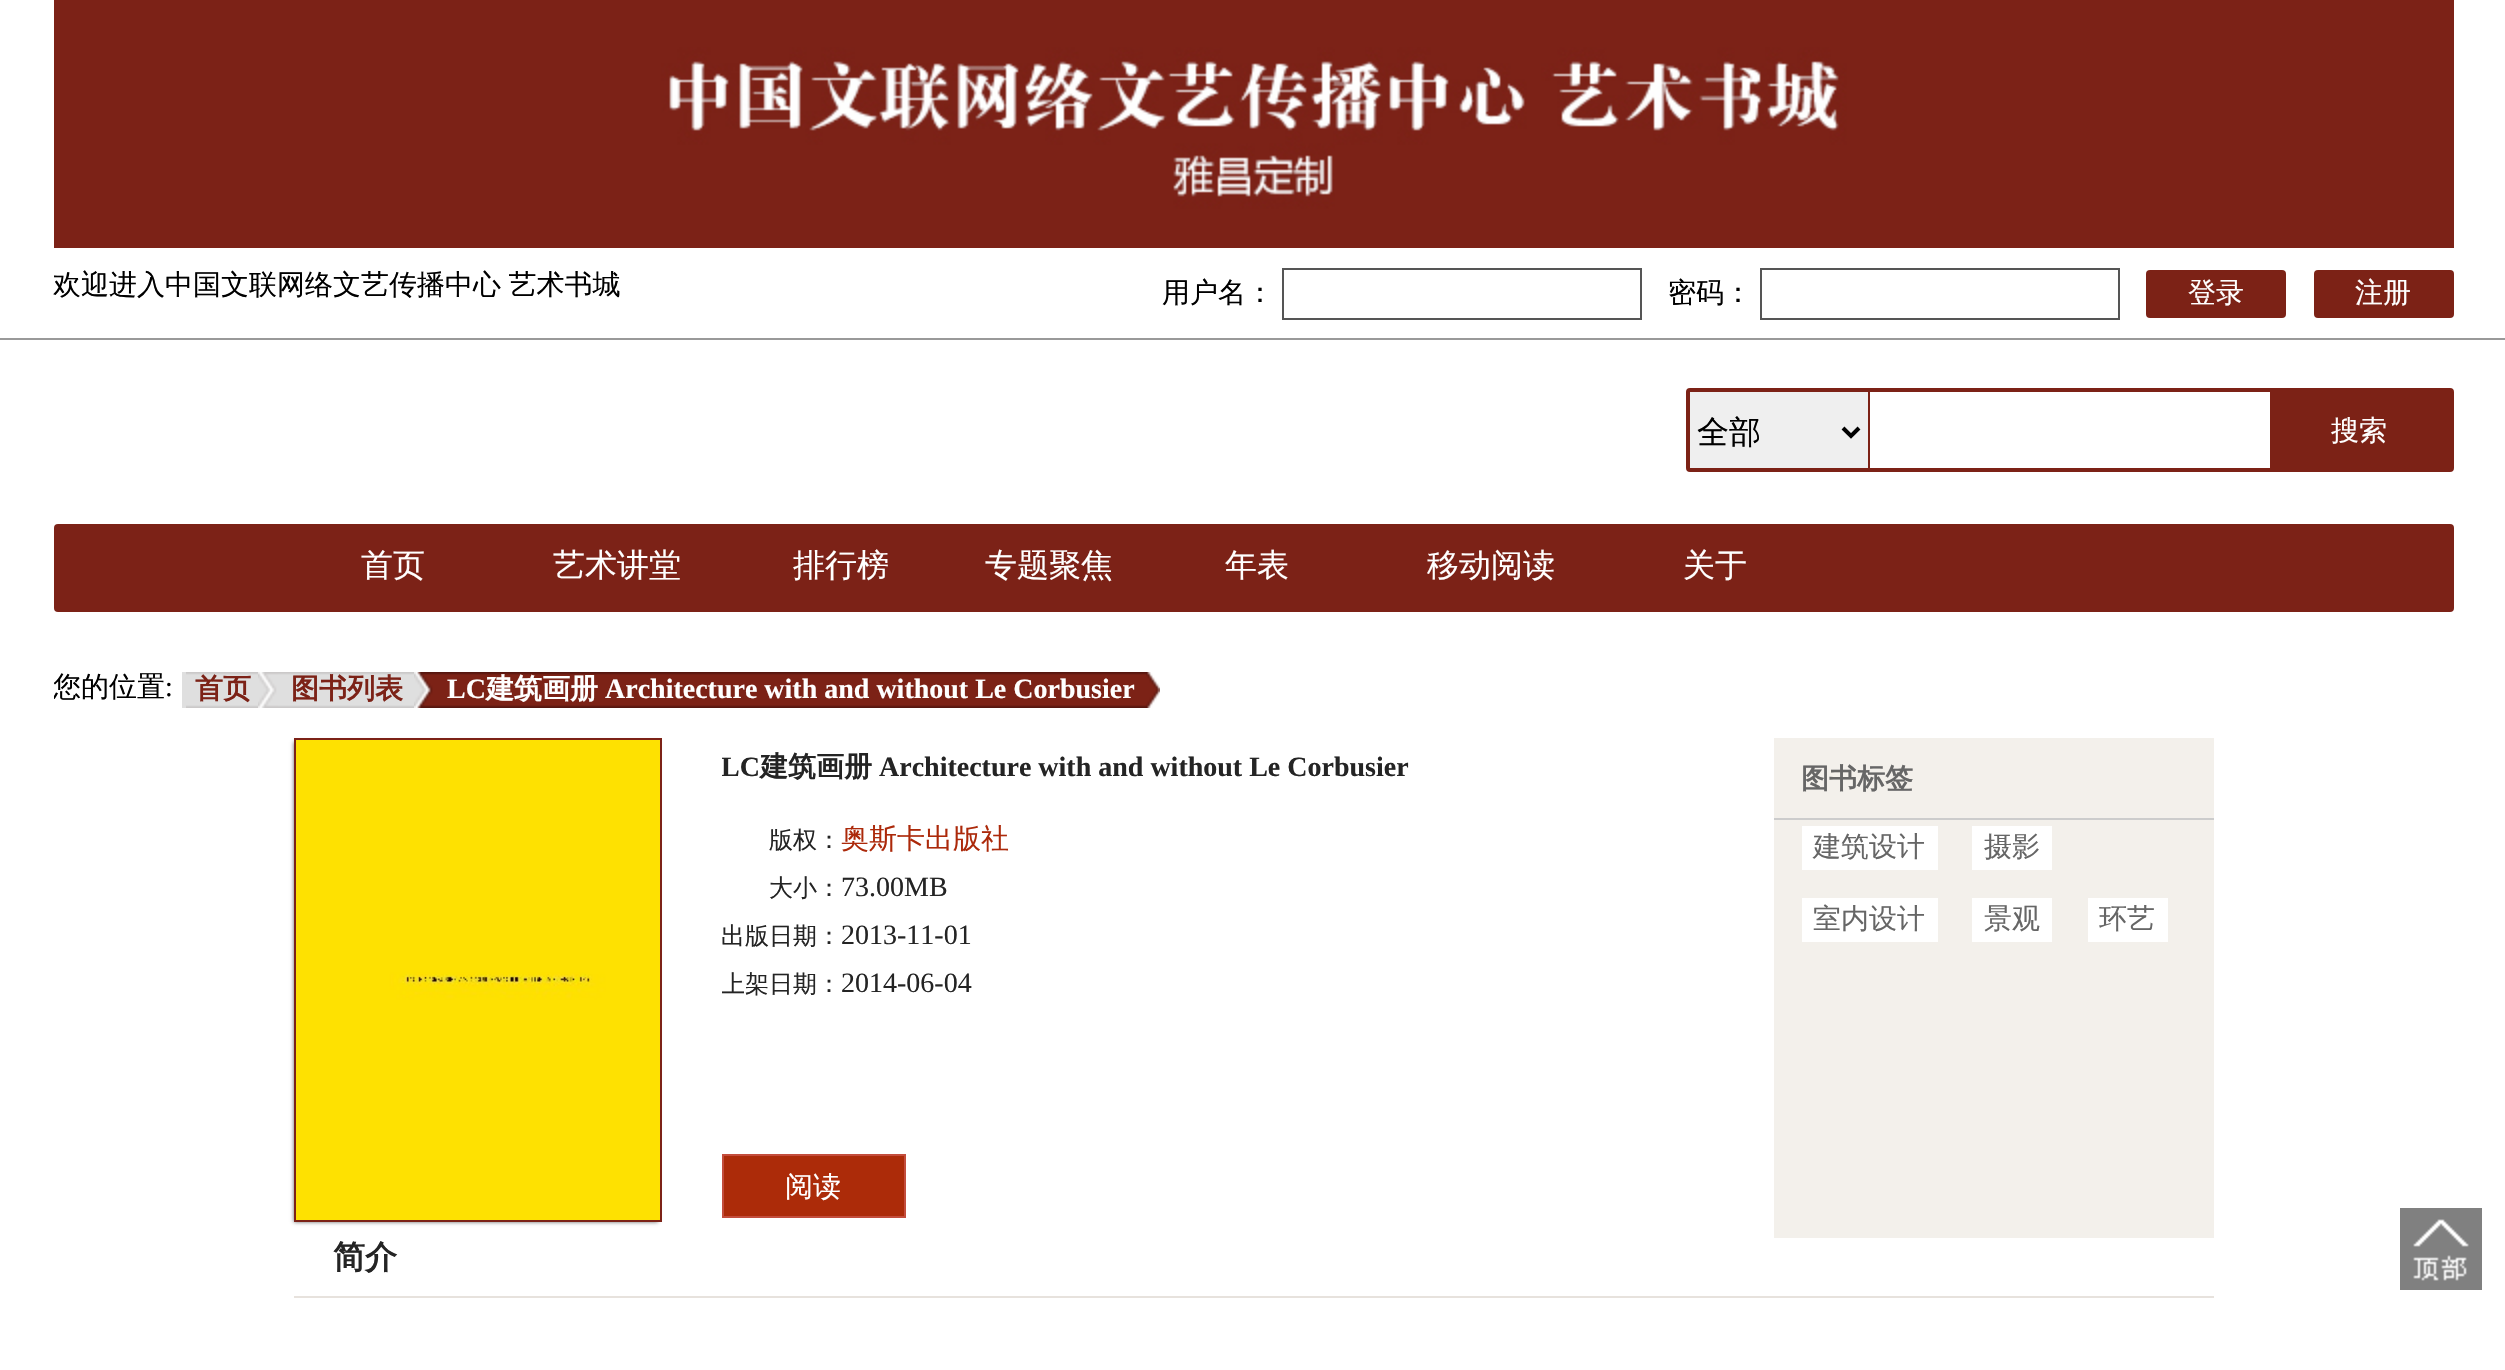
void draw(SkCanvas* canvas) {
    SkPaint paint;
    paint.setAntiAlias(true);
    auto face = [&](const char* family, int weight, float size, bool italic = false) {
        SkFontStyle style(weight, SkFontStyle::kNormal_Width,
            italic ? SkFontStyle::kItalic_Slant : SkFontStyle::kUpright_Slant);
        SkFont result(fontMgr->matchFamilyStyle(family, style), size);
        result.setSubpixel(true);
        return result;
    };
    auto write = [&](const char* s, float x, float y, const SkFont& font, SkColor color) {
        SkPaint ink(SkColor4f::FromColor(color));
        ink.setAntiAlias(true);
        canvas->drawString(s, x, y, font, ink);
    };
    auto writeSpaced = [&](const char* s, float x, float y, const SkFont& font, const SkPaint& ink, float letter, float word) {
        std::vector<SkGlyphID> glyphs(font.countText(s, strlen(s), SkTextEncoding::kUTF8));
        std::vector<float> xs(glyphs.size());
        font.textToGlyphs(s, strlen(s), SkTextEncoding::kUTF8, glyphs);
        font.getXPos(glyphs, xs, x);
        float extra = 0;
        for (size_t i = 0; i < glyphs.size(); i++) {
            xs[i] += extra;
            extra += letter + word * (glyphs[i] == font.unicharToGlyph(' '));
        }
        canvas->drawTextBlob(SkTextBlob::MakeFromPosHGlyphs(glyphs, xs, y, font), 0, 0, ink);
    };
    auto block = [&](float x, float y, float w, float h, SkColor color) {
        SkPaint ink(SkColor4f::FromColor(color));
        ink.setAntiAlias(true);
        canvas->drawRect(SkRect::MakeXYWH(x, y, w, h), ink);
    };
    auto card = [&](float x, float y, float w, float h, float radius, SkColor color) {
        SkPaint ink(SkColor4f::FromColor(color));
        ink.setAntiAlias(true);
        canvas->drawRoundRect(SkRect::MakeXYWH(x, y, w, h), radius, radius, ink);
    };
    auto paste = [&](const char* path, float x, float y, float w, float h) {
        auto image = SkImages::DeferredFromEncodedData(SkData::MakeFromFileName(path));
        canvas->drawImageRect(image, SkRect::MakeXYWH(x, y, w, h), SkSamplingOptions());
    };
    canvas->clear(SK_ColorWHITE);
    paste("pic1.png", 54, 0, 2400, 248);
    block(0, 338, 2505, 2, SkColorSetRGB(153, 153, 153));
    auto kFont1 = face("WenQuanYi Zen Hei", 500, 28);
    paint.setColor(SK_ColorBLACK);
    writeSpaced("欢迎进入中国文联网络文艺传播中心 艺术书城", 53, 294, kFont1, paint, 0, -1);
    write("用户名：", 1162, 302, kFont1, SK_ColorBLACK);
    paint.setStyle(SkPaint::kStroke_Style);
    paint.setStrokeWidth(2);
    paint.setColor(SkColorSetRGB(85, 85, 85));
    canvas->drawRect(SkRect::MakeXYWH(1283, 269, 358, 50), paint);
    write("密码：", 1668, 302, kFont1, SK_ColorBLACK);
    canvas->drawRect(SkRect::MakeXYWH(1761, 269, 358, 50), paint);
    card(2146, 270, 140, 48, 4, SkColorSetRGB(124, 34, 22));
    write("登录", 2188, 302, kFont1, SK_ColorWHITE);
    card(2314, 270, 140, 48, 4, SkColorSetRGB(124, 34, 22));
    write("注册", 2355, 302, kFont1, SK_ColorWHITE);
    paint.setStrokeWidth(4);
    paint.setColor(SkColorSetRGB(124, 34, 22));
    canvas->drawRoundRect(SkRect::MakeXYWH(1688, 390, 764, 80), 2, 2, paint);
    block(1690, 392, 178, 76, SkColorSetRGB(239, 239, 239));
    block(1868, 392, 2, 76, SkColorSetRGB(124, 34, 22));
    paint.setColor(SK_ColorBLACK);
    canvas->drawPath(SkPathBuilder().moveTo(1843, 428).lineTo(1851, 436).lineTo(1859, 428).detach(), paint);
    auto kFont2 = face("WenQuanYi Zen Hei", 500, 32);
    write("全部", 1697, 443, kFont2, SK_ColorBLACK);
    block(2270, 392, 180, 76, SkColorSetRGB(124, 34, 22));
    write("搜索", 2331, 440, kFont1, SK_ColorWHITE);
    card(54, 524, 2400, 88, 4, SkColorSetRGB(124, 34, 23));
    write("首页", 361, 576, kFont2, SK_ColorWHITE);
    write("艺术讲堂", 553, 576, kFont2, SK_ColorWHITE);
    write("排行榜", 793, 576, kFont2, SK_ColorWHITE);
    write("专题聚焦", 985, 576, kFont2, SK_ColorWHITE);
    write("年表", 1225, 576, kFont2, SK_ColorWHITE);
    write("移动阅读", 1427, 576, kFont2, SK_ColorWHITE);
    write("关于", 1683, 576, kFont2, SK_ColorWHITE);
    canvas->save();
    canvas->clipRect(SkRect::MakeXYWH(54, 670, 118, 36));
    write("您的位置", 53, 696, kFont1, SK_ColorBLACK);
    canvas->restore();
    auto kFont3 = face("Liberation Serif", 400, 28);
    write(":", 165, 696, kFont3, SK_ColorBLACK);
    paste("pic2.png", 186, 672, 72, 36);
    block(182, 672, 4, 36, SkColorSetRGB(223, 223, 223));
    auto kFont4 = face("WenQuanYi Zen Hei", 700, 28);
    write("首页", 195, 698, kFont4, SkColorSetRGB(124, 34, 23));
    paste("pic3.png", 258, 672, 20, 36);
    paste("pic4.png", 278, 672, 136, 36);
    write("图书列表", 291, 698, kFont4, SkColorSetRGB(124, 34, 23));
    paste("pic5.png", 414, 672, 20, 36);
    paste("pic6.png", 434, 672, 712, 36);
    auto kFont5 = face("Liberation Serif", 700, 28);
    write("LC", 447, 698, kFont5, SK_ColorWHITE);
    write("建筑画册", 486, 698, kFont4, SK_ColorWHITE);
    write("Architecture with and without Le Corbusier", 605, 698, kFont5, SK_ColorWHITE);
    paste("pic7.png", 1146, 672, 14, 36);
    paint.setStyle(SkPaint::kFill_Style);
    paint.setColor(SkColorSetRGB(102, 102, 102));
    paint.setMaskFilter(SkMaskFilter::MakeBlur(kNormal_SkBlurStyle, 2));
    canvas->drawRect(SkRect::MakeXYWH(294, 742, 364, 480), paint);
    paint.setMaskFilter(nullptr);
    paint.setStyle(SkPaint::kStroke_Style);
    paint.setStrokeWidth(2);
    paint.setColor(SkColorSetRGB(124, 34, 23));
    canvas->drawRect(SkRect::MakeXYWH(295, 739, 366, 482), paint);
    paste("pic8.png", 296, 740, 364, 480);
    canvas->save();
    canvas->clipRect(SkRect::MakeXYWH(722, 744, 972, 48));
    write("LC", 721, 776, kFont5, SkColorSetRGB(36, 36, 36));
    canvas->restore();
    write("建筑画册", 760, 776, kFont4, SkColorSetRGB(36, 36, 36));
    write("Architecture with and without Le Corbusier", 879, 776, kFont5, SkColorSetRGB(36, 36, 36));
    auto kFont6 = face("WenQuanYi Zen Hei", 500, 24);
    write("版权：", 769, 848, kFont6, SkColorSetRGB(36, 36, 36));
    write("奥斯卡出版社", 841, 848, kFont1, SkColorSetRGB(172, 41, 10));
    write("大小：", 769, 896, kFont6, SkColorSetRGB(36, 36, 36));
    write("73.00MB", 841, 896, kFont3, SkColorSetRGB(36, 36, 36));
    write("出版日期：", 721, 944, kFont6, SkColorSetRGB(36, 36, 36));
    write("2013-11-01", 841, 944, kFont3, SkColorSetRGB(36, 36, 36));
    canvas->save();
    canvas->clipRect(SkRect::MakeXYWH(722, 960, 972, 48));
    write("上架日期：", 721, 992, kFont6, SkColorSetRGB(36, 36, 36));
    canvas->restore();
    write("2014-06-04", 841, 992, kFont3, SkColorSetRGB(36, 36, 36));
    paint.setStyle(SkPaint::kFill_Style);
    paint.setColor(SkColorSetRGB(172, 43, 9));
    canvas->drawRect(SkRect::MakeXYWH(723, 1155, 182, 62), paint);
    paint.setStyle(SkPaint::kStroke_Style);
    paint.setColor(SkColorSetRGB(195, 77, 60));
    canvas->drawRect(SkRect::MakeXYWH(723, 1155, 182, 62), paint);
    write("阅读", 785, 1196, kFont1, SK_ColorWHITE);
    block(1774, 738, 440, 500, SkColorSetRGB(243, 240, 235));
    block(1774, 818, 440, 2, SkColorSetRGB(204, 204, 204));
    write("图书标签", 1801, 788, kFont4, SkColorSetRGB(102, 102, 102));
    block(1802, 826, 136, 44, SK_ColorWHITE);
    write("建筑设计", 1813, 856, kFont1, SkColorSetRGB(102, 102, 102));
    block(1972, 826, 80, 44, SK_ColorWHITE);
    write("摄影", 1984, 856, kFont1, SkColorSetRGB(102, 102, 102));
    block(1802, 898, 136, 44, SK_ColorWHITE);
    write("室内设计", 1813, 928, kFont1, SkColorSetRGB(102, 102, 102));
    block(1972, 898, 80, 44, SK_ColorWHITE);
    write("景观", 1984, 928, kFont1, SkColorSetRGB(102, 102, 102));
    block(2088, 898, 80, 44, SK_ColorWHITE);
    write("环艺", 2099, 928, kFont1, SkColorSetRGB(102, 102, 102));
    block(294, 1296, 1920, 2, SkColorSetRGB(231, 226, 221));
    auto kFont7 = face("WenQuanYi Zen Hei", 700, 32);
    write("简介", 333, 1268, kFont7, SkColorSetRGB(36, 36, 36));
    paste("pic9.png", 2400, 1208, 82, 82);
}
